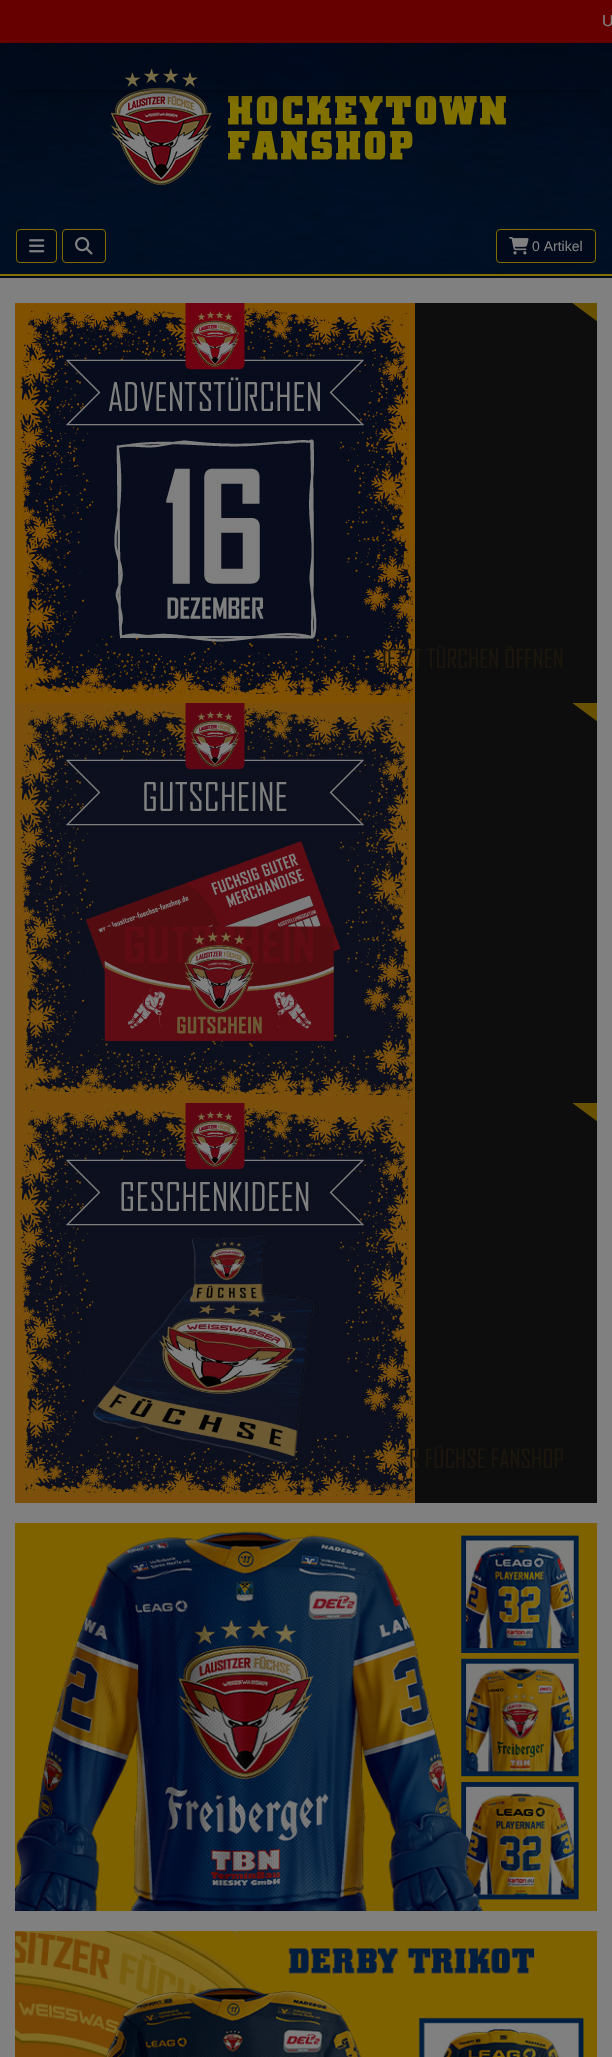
void draw(SkCanvas* canvas) {
    SkPaint paint;
    paint.setAntiAlias(true);
    auto face = [&](const char* family, int weight, float size, bool italic = false) {
        SkFontStyle style(weight, SkFontStyle::kNormal_Width,
            italic ? SkFontStyle::kItalic_Slant : SkFontStyle::kUpright_Slant);
        SkFont result(fontMgr->matchFamilyStyle(family, style), size);
        result.setSubpixel(true);
        return result;
    };
    auto write = [&](const char* s, float x, float y, const SkFont& font, SkColor color) {
        SkPaint ink(SkColor4f::FromColor(color));
        ink.setAntiAlias(true);
        canvas->drawString(s, x, y, font, ink);
    };
    auto block = [&](float x, float y, float w, float h, SkColor color) {
        SkPaint ink(SkColor4f::FromColor(color));
        ink.setAntiAlias(true);
        canvas->drawRect(SkRect::MakeXYWH(x, y, w, h), ink);
    };
    auto paste = [&](const char* path, float x, float y, float w, float h) {
        auto image = SkImages::DeferredFromEncodedData(SkData::MakeFromFileName(path));
        canvas->drawImageRect(image, SkRect::MakeXYWH(x, y, w, h), SkSamplingOptions());
    };
    canvas->clear(SK_ColorWHITE);
    paste("pic1.png", 0, 43, 612, 231);
    block(0, 43, 612, 231, SkColorSetARGB(204, 0, 10, 27));
    block(0, 0, 612, 43, SkColorSetRGB(102, 0, 0));
    auto kFont1 = face("Liberation Sans", 400, 16);
    write("U", 602, 26, kFont1, SkColorSetRGB(128, 128, 128));
    paste("pic2.png", 111, 68, 395, 117);
    paint.setColor(SkColorSetRGB(0, 10, 27));
    canvas->drawRoundRect(SkRect::MakeXYWH(16.5f, 229.5f, 40, 33), 3.5f, 3.5f, paint);
    paint.setStyle(SkPaint::kStroke_Style);
    paint.setStrokeWidth(1);
    paint.setColor(SkColorSetRGB(128, 111, 0));
    canvas->drawRoundRect(SkRect::MakeXYWH(16.5f, 229.5f, 40, 33), 3.5f, 3.5f, paint);
    paste("pic3.png", 29, 239, 16, 14);
    paint.setStyle(SkPaint::kFill_Style);
    paint.setColor(SkColorSetRGB(0, 10, 27));
    canvas->drawRoundRect(SkRect::MakeXYWH(62.5f, 229.5f, 43, 33), 3.5f, 3.5f, paint);
    paint.setStyle(SkPaint::kStroke_Style);
    paint.setColor(SkColorSetRGB(128, 111, 0));
    canvas->drawRoundRect(SkRect::MakeXYWH(62.5f, 229.5f, 43, 33), 3.5f, 3.5f, paint);
    paste("pic4.png", 75, 237, 18, 18);
    paint.setStyle(SkPaint::kFill_Style);
    paint.setColor(SkColorSetRGB(0, 10, 27));
    canvas->drawRoundRect(SkRect::MakeXYWH(496.5f, 229.5f, 99, 33), 3.5f, 3.5f, paint);
    paint.setStyle(SkPaint::kStroke_Style);
    paint.setColor(SkColorSetRGB(128, 111, 0));
    canvas->drawRoundRect(SkRect::MakeXYWH(496.5f, 229.5f, 99, 33), 3.5f, 3.5f, paint);
    paste("pic5.png", 509, 237, 20, 18);
    auto kFont2 = face("Liberation Sans", 400, 14);
    write("0 Artikel", 532, 251, kFont2, SkColorSetRGB(128, 128, 128));
    block(0, 274, 612, 2, SkColorSetRGB(128, 113, 0));
    block(0, 276, 612, 2, SkColorSetRGB(0, 10, 27));
    block(0, 278, 612, 1779, SkColorSetRGB(128, 128, 128));
    block(415, 303, 182, 1200, SkColorSetRGB(13, 13, 13));
    paste("pic6.png", 15, 303, 400, 400);
    canvas->save();
    canvas->clipRect(SkRect::MakeXYWH(15, 303, 582, 400));
    paint.setStyle(SkPaint::kFill_Style);
    paint.setColor(SkColorSetRGB(104, 81, 3));
    canvas->drawPath(SkPathBuilder().moveTo(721, -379).lineTo(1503, 197).lineTo(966, 593).lineTo(184, 17).close().detach(), paint);
    canvas->restore();
    auto kFont3 = face("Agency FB", 400, 25.25f);
    write("JETZT TÜRCHEN ÖFFNEN", 377, 668, kFont3, SkColorSetRGB(27, 21, 13));
    paste("pic7.png", 15, 703, 400, 400);
    canvas->save();
    canvas->clipRect(SkRect::MakeXYWH(15, 703, 582, 400));
    canvas->drawPath(SkPathBuilder().moveTo(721, 21).lineTo(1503, 597).lineTo(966, 993).lineTo(184, 417).close().detach(), paint);
    canvas->restore();
    paste("pic8.png", 15, 1103, 400, 400);
    canvas->save();
    canvas->clipRect(SkRect::MakeXYWH(15, 1103, 582, 400));
    canvas->drawPath(SkPathBuilder().moveTo(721, 421).lineTo(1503, 997).lineTo(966, 1393).lineTo(184, 817).close().detach(), paint);
    canvas->restore();
    write("R FÜCHSE FANSHOP", 409, 1468, kFont3, SkColorSetRGB(27, 21, 13));
    paste("pic9.png", 15, 1523, 582, 388);
    paste("pic10.png", 15, 1931, 582, 126);
    paint.setColor(SkColorSetARGB(128, 0, 0, 0));
    paint.setMaskFilter(SkMaskFilter::MakeBlur(kNormal_SkBlurStyle, 4.5f));
    canvas->drawRoundRect(SkRect::MakeXYWH(10, 93, 592, 2), 1, 1, paint);
    paint.setMaskFilter(nullptr);
    block(10, 90, 592, 2, SkColorSetARGB(51, 0, 0, 0));
}
